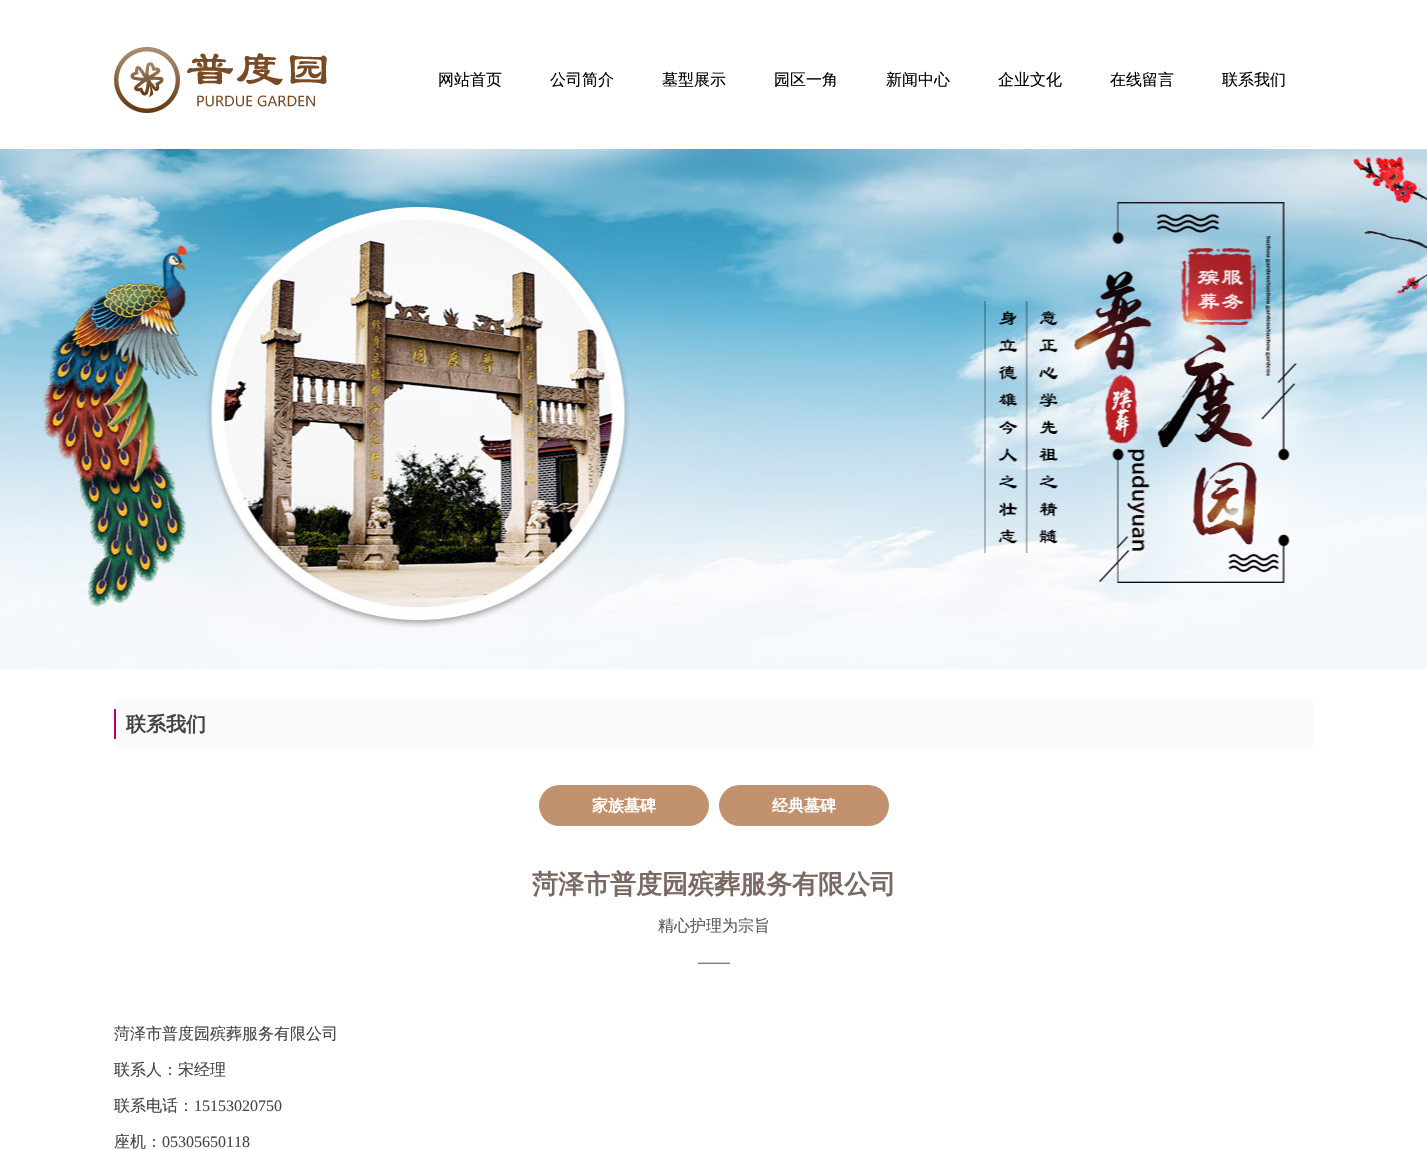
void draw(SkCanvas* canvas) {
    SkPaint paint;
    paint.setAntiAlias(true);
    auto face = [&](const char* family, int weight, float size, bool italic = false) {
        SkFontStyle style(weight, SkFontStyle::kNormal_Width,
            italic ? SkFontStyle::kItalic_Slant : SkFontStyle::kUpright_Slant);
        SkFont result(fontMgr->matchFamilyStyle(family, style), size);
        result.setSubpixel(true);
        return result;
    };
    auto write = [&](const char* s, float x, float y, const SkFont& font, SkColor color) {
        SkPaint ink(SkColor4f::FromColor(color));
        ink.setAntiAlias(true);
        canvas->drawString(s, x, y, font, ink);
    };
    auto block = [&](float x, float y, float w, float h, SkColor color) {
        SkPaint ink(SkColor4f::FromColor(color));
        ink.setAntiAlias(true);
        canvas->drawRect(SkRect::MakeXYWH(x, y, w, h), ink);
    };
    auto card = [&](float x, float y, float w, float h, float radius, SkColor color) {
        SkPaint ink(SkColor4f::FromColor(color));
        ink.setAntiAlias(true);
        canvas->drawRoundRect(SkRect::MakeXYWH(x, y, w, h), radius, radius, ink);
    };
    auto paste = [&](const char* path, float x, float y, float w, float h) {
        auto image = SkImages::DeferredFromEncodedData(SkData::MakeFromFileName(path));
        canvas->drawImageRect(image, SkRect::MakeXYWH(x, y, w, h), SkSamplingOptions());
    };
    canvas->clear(SK_ColorWHITE);
    paste("pic1.png", 114, 47, 213, 66);
    auto kFont1 = face("WenQuanYi Zen Hei", 500, 16);
    write("网站首页", 438, 85, kFont1, SK_ColorBLACK);
    write("公司简介", 550, 85, kFont1, SK_ColorBLACK);
    write("墓型展示", 662, 85, kFont1, SK_ColorBLACK);
    write("园区一角", 774, 85, kFont1, SK_ColorBLACK);
    write("新闻中心", 886, 85, kFont1, SK_ColorBLACK);
    write("企业文化", 998, 85, kFont1, SK_ColorBLACK);
    write("在线留言", 1110, 85, kFont1, SK_ColorBLACK);
    write("联系我们", 1222, 85, kFont1, SK_ColorBLACK);
    paste("pic2.png", 0, 149, 1427, 520);
    card(114, 699, 1200, 50, 5, SkColorSetRGB(250, 250, 250));
    block(114, 709, 2, 30, SkColorSetRGB(196, 0, 91));
    auto kFont2 = face("WenQuanYi Zen Hei", 700, 20);
    write("联系我们", 126, 731, kFont2, SkColorSetRGB(68, 68, 68));
    card(539, 785, 170, 41, 20.5f, SkColorSetRGB(194, 146, 111));
    auto kFont3 = face("WenQuanYi Zen Hei", 700, 16);
    write("家族墓碑", 592, 811, kFont3, SK_ColorWHITE);
    card(719, 785, 170, 41, 20.5f, SkColorSetRGB(194, 146, 111));
    write("经典墓碑", 772, 811, kFont3, SK_ColorWHITE);
    auto kFont4 = face("WenQuanYi Zen Hei", 700, 26);
    write("菏泽市普度园殡葬服务有限公司", 532, 893, kFont4, SkColorSetRGB(122, 104, 99));
    write("精心护理为宗旨", 658, 931, kFont1, SkColorSetRGB(89, 89, 89));
    auto kFont5 = face("Liberation Serif", 700, 16);
    write("——", 698, 967, kFont5, SkColorSetRGB(122, 104, 99));
    write("菏泽市普度园殡葬服务有限公司", 114, 1039, kFont1, SkColorSetRGB(68, 68, 68));
    write("联系人：宋经理", 114, 1075, kFont1, SkColorSetRGB(68, 68, 68));
    write("联系电话：", 114, 1111, kFont1, SkColorSetRGB(68, 68, 68));
    auto kFont6 = face("Liberation Serif", 400, 16);
    write("15153020750", 194, 1111, kFont6, SkColorSetRGB(68, 68, 68));
    write("座机：", 114, 1147, kFont1, SkColorSetRGB(68, 68, 68));
    write("05305650118", 162, 1147, kFont6, SkColorSetRGB(68, 68, 68));
}
